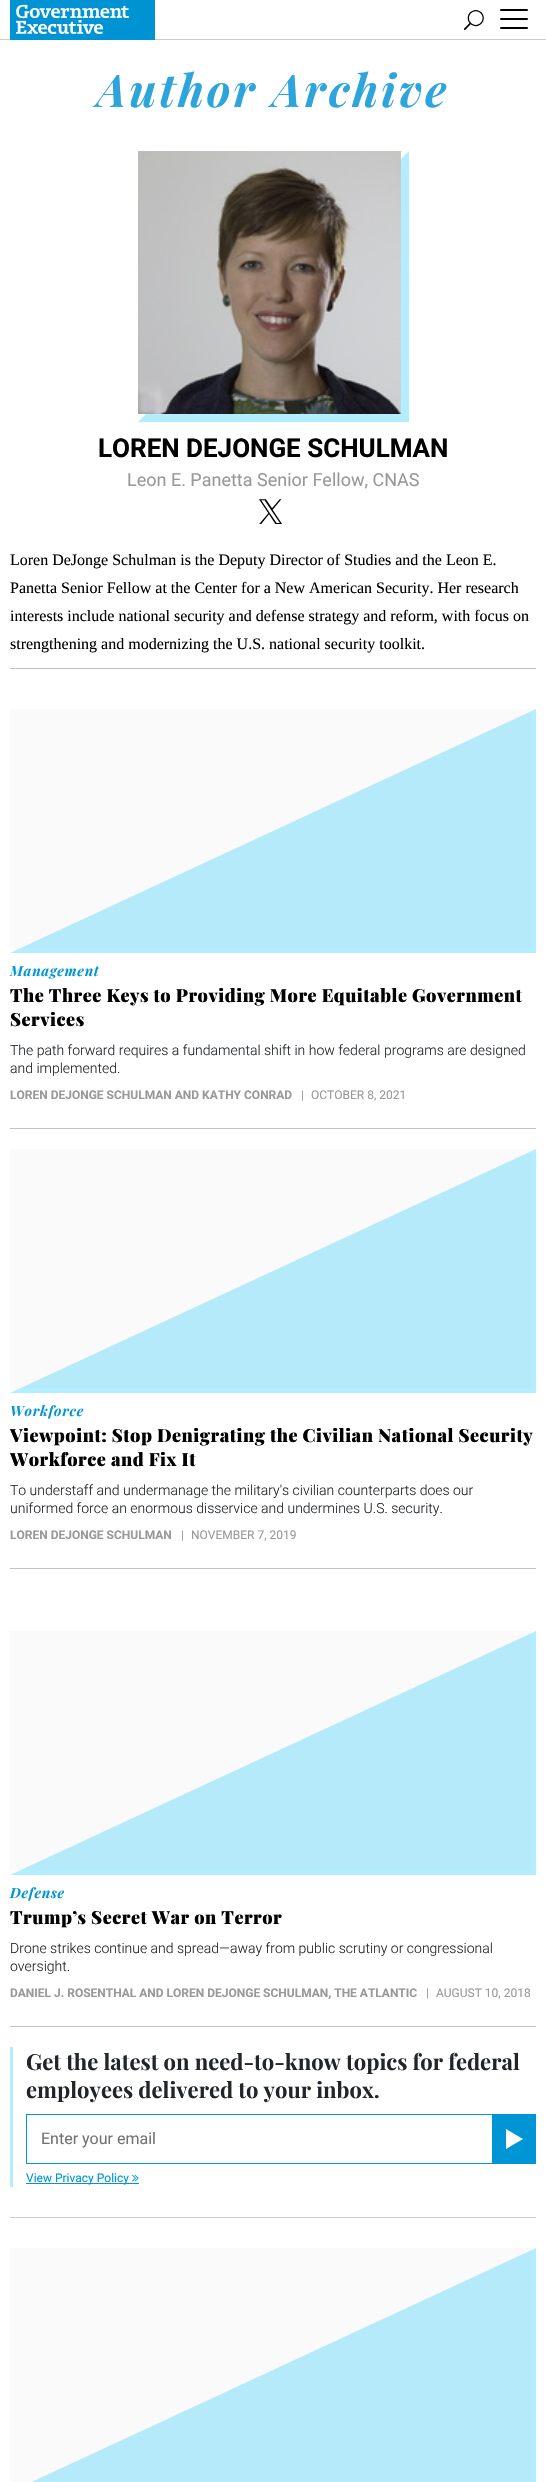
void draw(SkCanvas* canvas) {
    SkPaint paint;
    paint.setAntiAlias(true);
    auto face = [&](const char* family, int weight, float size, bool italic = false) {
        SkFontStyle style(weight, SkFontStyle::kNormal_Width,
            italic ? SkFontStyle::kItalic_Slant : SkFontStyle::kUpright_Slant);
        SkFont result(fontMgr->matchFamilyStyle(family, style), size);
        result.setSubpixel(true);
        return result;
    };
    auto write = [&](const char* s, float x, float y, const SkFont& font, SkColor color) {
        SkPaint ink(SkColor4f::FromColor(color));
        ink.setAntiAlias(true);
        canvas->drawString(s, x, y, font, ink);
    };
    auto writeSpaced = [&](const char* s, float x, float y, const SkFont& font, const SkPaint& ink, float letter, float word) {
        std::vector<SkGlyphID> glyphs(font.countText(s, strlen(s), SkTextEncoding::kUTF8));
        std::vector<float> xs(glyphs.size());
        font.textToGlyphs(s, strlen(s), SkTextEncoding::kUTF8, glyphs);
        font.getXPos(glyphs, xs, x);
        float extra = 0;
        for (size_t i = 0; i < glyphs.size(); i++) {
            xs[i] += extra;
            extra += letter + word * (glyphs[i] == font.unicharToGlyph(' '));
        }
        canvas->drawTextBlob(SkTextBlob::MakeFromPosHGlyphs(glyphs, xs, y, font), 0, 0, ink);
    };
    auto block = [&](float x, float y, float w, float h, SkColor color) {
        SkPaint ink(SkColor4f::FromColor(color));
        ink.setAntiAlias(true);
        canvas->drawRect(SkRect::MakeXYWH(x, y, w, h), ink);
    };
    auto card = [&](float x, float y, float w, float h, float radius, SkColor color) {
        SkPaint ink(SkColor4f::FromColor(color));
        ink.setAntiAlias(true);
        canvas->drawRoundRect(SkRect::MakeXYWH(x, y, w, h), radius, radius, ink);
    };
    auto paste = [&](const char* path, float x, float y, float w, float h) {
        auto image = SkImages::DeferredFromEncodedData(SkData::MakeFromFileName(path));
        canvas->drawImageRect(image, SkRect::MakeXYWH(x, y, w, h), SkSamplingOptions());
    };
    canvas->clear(SK_ColorWHITE);
    block(0, 39, 546, 1, SkColorSetRGB(204, 204, 204));
    paste("pic1.png", 10, 0, 145, 40);
    paste("pic2.png", 464, 10, 20, 20);
    card(500, 18, 28, 2, 1, SK_ColorBLACK);
    card(500, 9, 28, 2, 1, SK_ColorBLACK);
    card(500, 27, 28, 2, 1, SK_ColorBLACK);
    auto kFont1 = face("Playfair Display", 700, 45, true);
    paint.setColor(SkColorSetRGB(45, 164, 220));
    writeSpaced("Author Archive", 97, 107, kFont1, paint, 3, 0);
    paint.setColor(SkColorSetRGB(178, 238, 255));
    canvas->drawPath(SkPathBuilder().moveTo(138, 422).lineTo(409, 151).lineTo(409, 422).close().detach(), paint);
    paste("pic3.png", 138, 151, 263, 263);
    auto kFont2 = face("Roboto", 700, 26);
    write("LOREN DEJONGE SCHULMAN", 98, 457, kFont2, SK_ColorBLACK);
    auto kFont3 = face("Roboto", 400, 18);
    write("Leon E. Panetta Senior Fellow, CNAS", 127, 486, kFont3, SkColorSetRGB(153, 153, 153));
    paste("pic4.png", 259, 499, 23, 25);
    auto kFont4 = face("Liberation Serif", 400, 16);
    write("Loren DeJonge Schulman is the Deputy Director of Studies and the Leon E.", 10, 565, kFont4, SK_ColorBLACK);
    write("Panetta Senior Fellow at the Center for a New American Security. Her research", 10, 593, kFont4, SK_ColorBLACK);
    write("interests include national security and defense strategy and reform, with focus on", 10, 621, kFont4, SK_ColorBLACK);
    write("strengthening and modernizing the U.S. national security toolkit.", 10, 649, kFont4, SK_ColorBLACK);
    block(10, 668, 526, 1, SkColorSetRGB(194, 194, 194));
    block(10, 1128, 526, 1, SkColorSetRGB(194, 194, 194));
    canvas->drawPath(SkPathBuilder().moveTo(10, 953).lineTo(536, 709).lineTo(536, 953).close().detach(), paint);
    block(10, 709, 521, 239, SkColorSetARGB(26, 210, 210, 210));
    auto kFont5 = face("Playfair Display", 700, 14, true);
    paint.setColor(SkColorSetRGB(0, 149, 213));
    writeSpaced("Management", 10, 976, kFont5, paint, 0.75f, 0);
    auto kFont6 = face("Playfair Display", 900, 18);
    paint.setColor(SK_ColorBLACK);
    writeSpaced("The Three Keys to Providing More Equitable Government", 10, 1002, kFont6, paint, 0.5f, 0);
    writeSpaced("Services", 10, 1026, kFont6, paint, 0.5f, 0);
    auto kFont7 = face("Roboto", 300, 14);
    write("The path forward requires a fundamental shift in how federal programs are designed", 10, 1055, kFont7, SkColorSetRGB(33, 37, 41));
    write("and implemented.", 10, 1073, kFont7, SkColorSetRGB(33, 37, 41));
    auto kFont8 = face("Roboto", 700, 12);
    write("LOREN DEJONGE SCHULMAN AND KATHY CONRAD", 10, 1099, kFont8, SkColorSetRGB(153, 153, 153));
    auto kFont9 = face("Roboto", 400, 12);
    write("|", 301, 1099, kFont9, SkColorSetRGB(153, 153, 153));
    write("OCTOBER 8, 2021", 311, 1099, kFont9, SkColorSetRGB(153, 153, 153));
    block(10, 1568, 526, 1, SkColorSetRGB(194, 194, 194));
    paint.setColor(SkColorSetRGB(178, 238, 255));
    canvas->drawPath(SkPathBuilder().moveTo(10, 1393).lineTo(536, 1149).lineTo(536, 1393).close().detach(), paint);
    block(10, 1149, 521, 239, SkColorSetARGB(26, 210, 210, 210));
    paint.setColor(SkColorSetRGB(0, 149, 213));
    writeSpaced("Workforce", 10, 1416, kFont5, paint, 0.75f, 0);
    paint.setColor(SK_ColorBLACK);
    writeSpaced("Viewpoint: Stop Denigrating the Civilian National Security", 10, 1442, kFont6, paint, 0.5f, 0);
    writeSpaced("Workforce and Fix It", 10, 1466, kFont6, paint, 0.5f, 0);
    write("To understaff and undermanage the military's civilian counterparts does our", 10, 1495, kFont7, SkColorSetRGB(33, 37, 41));
    write("uniformed force an enormous disservice and undermines U.S. security.", 10, 1513, kFont7, SkColorSetRGB(33, 37, 41));
    write("LOREN DEJONGE SCHULMAN", 10, 1539, kFont8, SkColorSetRGB(153, 153, 153));
    write("|", 181, 1539, kFont9, SkColorSetRGB(153, 153, 153));
    write("NOVEMBER 7, 2019", 191, 1539, kFont9, SkColorSetRGB(153, 153, 153));
    block(10, 2026, 526, 1, SkColorSetRGB(194, 194, 194));
    paint.setColor(SkColorSetRGB(178, 238, 255));
    canvas->drawPath(SkPathBuilder().moveTo(10, 1875).lineTo(536, 1631).lineTo(536, 1875).close().detach(), paint);
    block(10, 1631, 521, 239, SkColorSetARGB(26, 210, 210, 210));
    paint.setColor(SkColorSetRGB(0, 149, 213));
    writeSpaced("Defense", 10, 1898, kFont5, paint, 0.75f, 0);
    paint.setColor(SK_ColorBLACK);
    writeSpaced("Trump’s Secret War on Terror", 10, 1924, kFont6, paint, 0.5f, 0);
    write("Drone strikes continue and spread—away from public scrutiny or congressional", 10, 1953, kFont7, SkColorSetRGB(33, 37, 41));
    write("oversight.", 10, 1971, kFont7, SkColorSetRGB(33, 37, 41));
    write("DANIEL J. ROSENTHAL AND LOREN DEJONGE SCHULMAN, THE ATLANTIC", 10, 1997, kFont8, SkColorSetRGB(153, 153, 153));
    write("|", 426, 1997, kFont9, SkColorSetRGB(153, 153, 153));
    write("AUGUST 10, 2018", 436, 1997, kFont9, SkColorSetRGB(153, 153, 153));
    block(10, 2047, 3, 140, SkColorSetRGB(178, 238, 255));
    auto kFont10 = face("Playfair Display", 700, 22);
    write("Get the latest on need-to-know topics for federal", 26, 2070, kFont10, SkColorSetRGB(33, 37, 41));
    write("employees delivered to your inbox.", 26, 2098, kFont10, SkColorSetRGB(33, 37, 41));
    paint.setStyle(SkPaint::kStroke_Style);
    paint.setStrokeWidth(1);
    paint.setColor(SkColorSetRGB(0, 149, 213));
    canvas->drawRect(SkRect::MakeXYWH(26.5f, 2114.5f, 509, 49), paint);
    auto kFont11 = face("Roboto", 400, 16);
    write("Enter your email", 41, 2144, kFont11, SkColorSetRGB(115, 115, 115));
    block(492, 2115, 43, 48, SkColorSetRGB(0, 149, 213));
    paint.setStyle(SkPaint::kFill_Style);
    paint.setColor(SK_ColorWHITE);
    canvas->drawPath(SkPathBuilder().moveTo(506, 2149).lineTo(506, 2129).lineTo(523, 2139).close().detach(), paint);
    block(26, 2183, 113, 1, SkColorSetRGB(0, 149, 213));
    write("View Privacy Policy", 26, 2182, kFont9, SkColorSetRGB(0, 149, 213));
    paste("pic5.png", 132, 2174, 7, 8);
    block(10, 2217, 526, 1, SkColorSetRGB(204, 204, 204));
    paint.setColor(SkColorSetRGB(178, 238, 255));
    canvas->drawPath(SkPathBuilder().moveTo(10, 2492).lineTo(536, 2248).lineTo(536, 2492).close().detach(), paint);
    block(10, 2248, 521, 234, SkColorSetARGB(26, 210, 210, 210));
}
